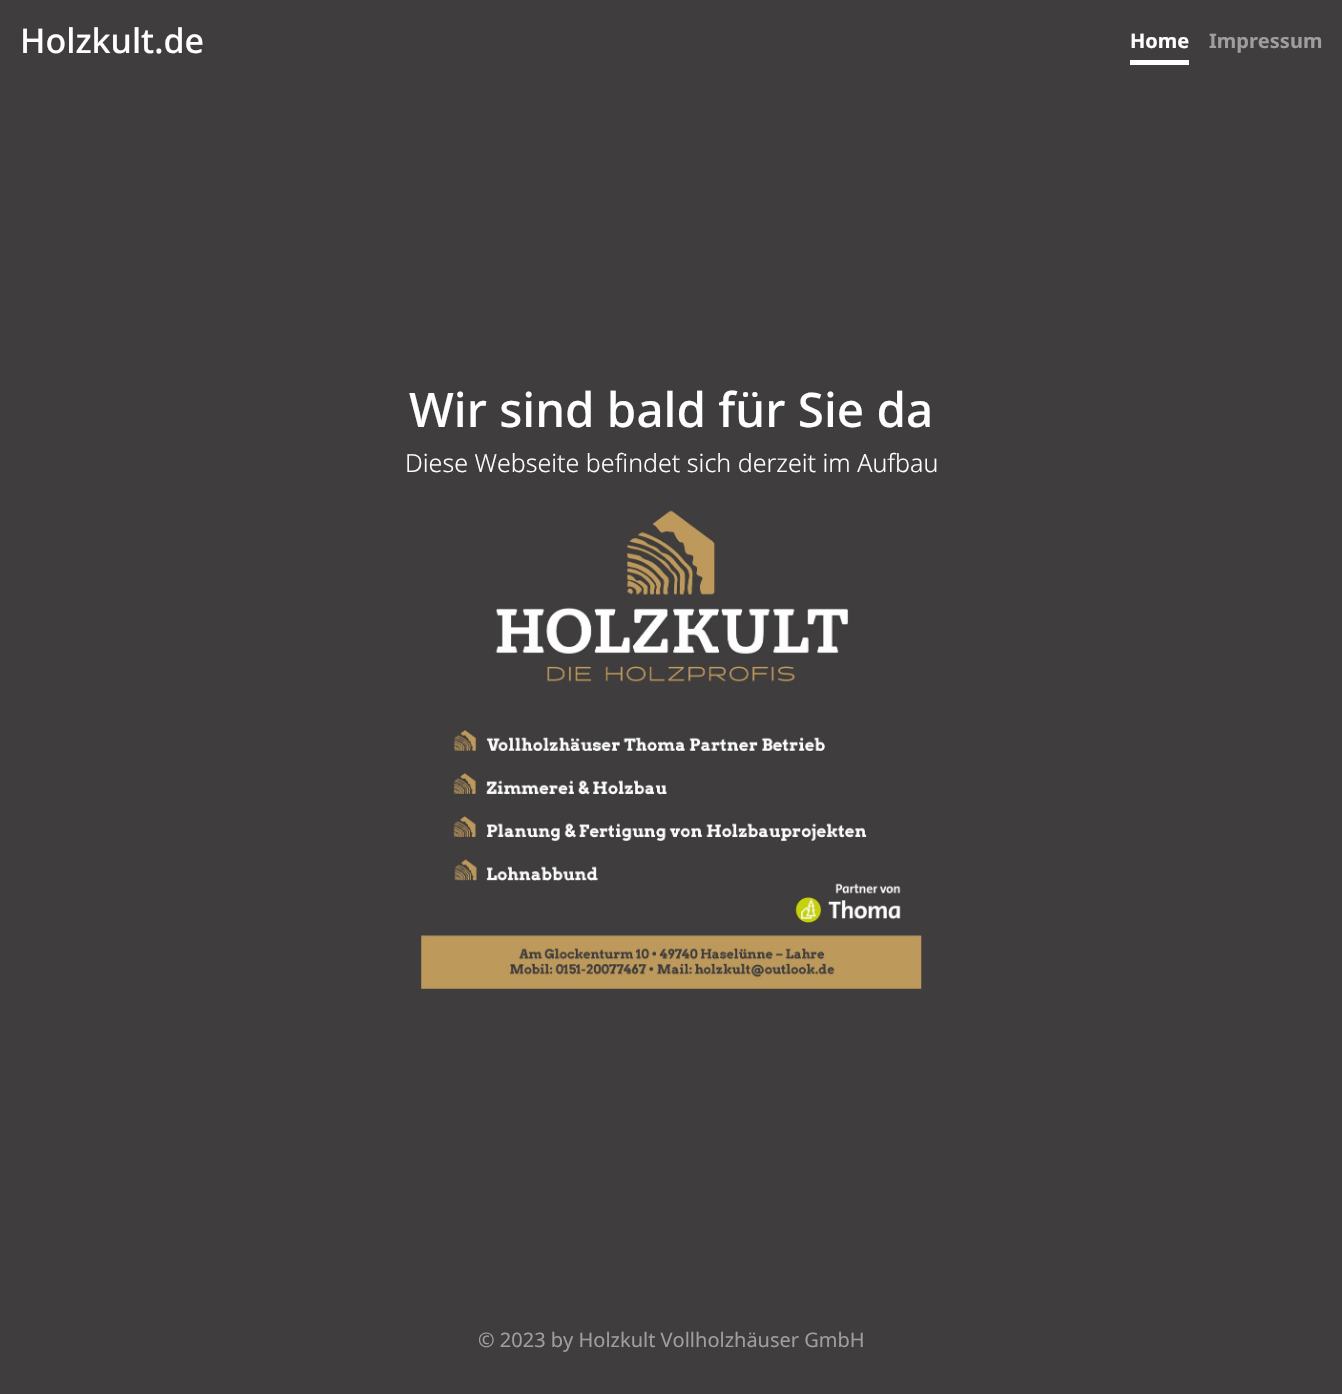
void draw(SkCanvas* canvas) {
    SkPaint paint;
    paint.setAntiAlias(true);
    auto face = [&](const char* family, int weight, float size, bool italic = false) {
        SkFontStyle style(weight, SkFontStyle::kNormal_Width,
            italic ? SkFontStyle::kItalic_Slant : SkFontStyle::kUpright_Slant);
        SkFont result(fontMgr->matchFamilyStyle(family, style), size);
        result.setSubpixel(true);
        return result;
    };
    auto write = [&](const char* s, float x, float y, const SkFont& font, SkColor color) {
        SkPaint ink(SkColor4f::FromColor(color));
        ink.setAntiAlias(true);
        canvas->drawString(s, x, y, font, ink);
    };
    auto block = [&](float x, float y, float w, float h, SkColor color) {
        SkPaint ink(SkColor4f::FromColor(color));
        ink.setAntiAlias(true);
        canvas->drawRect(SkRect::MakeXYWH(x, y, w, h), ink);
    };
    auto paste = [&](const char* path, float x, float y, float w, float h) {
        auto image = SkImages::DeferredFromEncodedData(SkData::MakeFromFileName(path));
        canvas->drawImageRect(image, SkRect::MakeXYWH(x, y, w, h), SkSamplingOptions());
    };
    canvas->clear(SkColorSetRGB(63, 61, 62));
    auto kFont1 = face("Noto Sans", 500, 34);
    write("Holzkult.de", 20, 53, kFont1, SK_ColorWHITE);
    block(1130, 60, 59, 5, SK_ColorWHITE);
    auto kFont2 = face("Noto Sans", 700, 20);
    write("Home", 1130, 48, kFont2, SK_ColorWHITE);
    write("Impressum", 1209, 48, kFont2, SkColorSetRGB(159, 158, 159));
    auto kFont3 = face("Noto Sans", 500, 47.6f);
    write("Wir sind bald für Sie da", 409, 427, kFont3, SK_ColorWHITE);
    auto kFont4 = face("Noto Sans", 300, 25);
    write("Diese Webseite befindet sich derzeit im Aufbau", 405, 472, kFont4, SK_ColorWHITE);
    paste("pic1.png", 421, 510, 501, 479);
    auto kFont5 = face("Noto Sans", 400, 20);
    write("© 2023 by Holzkult Vollholzhäuser GmbH", 478, 1347, kFont5, SkColorSetRGB(159, 158, 159));
}
